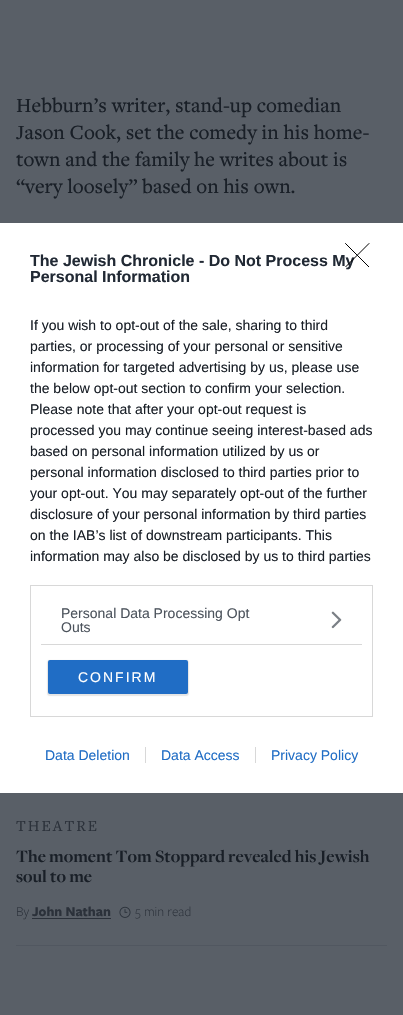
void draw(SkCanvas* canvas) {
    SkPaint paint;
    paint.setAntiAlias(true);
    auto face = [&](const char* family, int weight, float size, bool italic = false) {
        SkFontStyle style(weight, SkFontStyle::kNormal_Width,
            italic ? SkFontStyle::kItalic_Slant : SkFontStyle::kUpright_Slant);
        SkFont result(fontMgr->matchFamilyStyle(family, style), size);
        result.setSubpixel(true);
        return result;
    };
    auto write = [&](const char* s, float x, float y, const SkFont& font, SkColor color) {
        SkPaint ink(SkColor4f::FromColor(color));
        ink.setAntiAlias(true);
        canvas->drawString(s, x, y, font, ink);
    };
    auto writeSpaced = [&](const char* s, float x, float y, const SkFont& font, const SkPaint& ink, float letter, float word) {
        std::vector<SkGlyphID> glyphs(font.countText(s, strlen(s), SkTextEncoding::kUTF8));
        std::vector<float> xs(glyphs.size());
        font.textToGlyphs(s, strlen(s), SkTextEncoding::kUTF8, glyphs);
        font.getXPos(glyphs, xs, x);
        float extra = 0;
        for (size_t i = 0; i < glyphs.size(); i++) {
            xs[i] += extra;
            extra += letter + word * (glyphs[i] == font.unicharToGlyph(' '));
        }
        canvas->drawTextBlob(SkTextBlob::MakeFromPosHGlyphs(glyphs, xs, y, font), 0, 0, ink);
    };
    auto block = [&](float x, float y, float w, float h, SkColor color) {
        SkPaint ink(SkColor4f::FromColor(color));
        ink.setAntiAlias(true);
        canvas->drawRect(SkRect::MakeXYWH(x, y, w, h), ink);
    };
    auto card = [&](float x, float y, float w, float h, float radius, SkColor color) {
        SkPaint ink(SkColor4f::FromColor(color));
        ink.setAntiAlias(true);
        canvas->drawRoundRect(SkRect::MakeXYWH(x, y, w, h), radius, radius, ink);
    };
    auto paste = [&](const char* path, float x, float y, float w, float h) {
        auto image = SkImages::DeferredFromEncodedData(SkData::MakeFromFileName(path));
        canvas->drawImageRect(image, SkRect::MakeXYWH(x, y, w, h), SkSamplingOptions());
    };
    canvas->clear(SkColorSetRGB(89, 95, 103));
    auto kFont1 = face("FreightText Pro", 500, 21);
    write("Hebburn’s writer, stand-up comedian", 16, 112, kFont1, SkColorSetRGB(25, 31, 39));
    write("Jason Cook, set the comedy in his home-", 16, 139, kFont1, SkColorSetRGB(25, 31, 39));
    write("town and the family he writes about is", 16, 166, kFont1, SkColorSetRGB(25, 31, 39));
    write("“very loosely” based on his own.", 16, 193, kFont1, SkColorSetRGB(25, 31, 39));
    block(0, 223, 403, 570, SK_ColorWHITE);
    auto kFont2 = face("Liberation Sans", 700, 16);
    write("The Jewish Chronicle - Do Not Process My", 30, 266, kFont2, SkColorSetRGB(33, 41, 52));
    canvas->save();
    canvas->clipRect(SkRect::MakeXYWH(345, 243, 25, 24));
    paint.setStyle(SkPaint::kStroke_Style);
    paint.setStrokeWidth(1);
    paint.setStrokeCap(SkPaint::kRound_Cap);
    paint.setStrokeJoin(SkPaint::kRound_Join);
    paint.setColor(SK_ColorBLACK);
    canvas->drawPath(SkPathBuilder().moveTo(345.5f, 243.5f).lineTo(369, 267).moveTo(369, 243.5f).lineTo(345.5f, 267).detach(), paint);
    canvas->restore();
    write("Personal Information", 30, 282, kFont2, SkColorSetRGB(33, 41, 52));
    auto kFont3 = face("Liberation Sans", 400, 14);
    write("If you wish to opt-out of the sale, sharing to third", 30, 330, kFont3, SkColorSetRGB(25, 31, 39));
    write("parties, or processing of your personal or sensitive", 30, 351, kFont3, SkColorSetRGB(25, 31, 39));
    write("information for targeted advertising by us, please use", 30, 372, kFont3, SkColorSetRGB(25, 31, 39));
    write("the below opt-out section to confirm your selection.", 30, 393, kFont3, SkColorSetRGB(25, 31, 39));
    write("Please note that after your opt-out request is", 30, 414, kFont3, SkColorSetRGB(25, 31, 39));
    write("processed you may continue seeing interest-based ads", 30, 435, kFont3, SkColorSetRGB(25, 31, 39));
    write("based on personal information utilized by us or", 30, 456, kFont3, SkColorSetRGB(25, 31, 39));
    write("personal information disclosed to third parties prior to", 30, 477, kFont3, SkColorSetRGB(25, 31, 39));
    write("your opt-out. You may separately opt-out of the further", 30, 498, kFont3, SkColorSetRGB(25, 31, 39));
    write("disclosure of your personal information by third parties", 30, 519, kFont3, SkColorSetRGB(25, 31, 39));
    write("on the IAB’s list of downstream participants. This", 30, 540, kFont3, SkColorSetRGB(25, 31, 39));
    write("information may also be disclosed by us to third parties", 30, 561, kFont3, SkColorSetRGB(25, 31, 39));
    paint.setStrokeCap(SkPaint::kButt_Cap);
    paint.setStrokeJoin(SkPaint::kMiter_Join);
    paint.setColor(SkColorSetRGB(216, 216, 216));
    canvas->drawRect(SkRect::MakeXYWH(30.5f, 585.5f, 342, 131), paint);
    block(41, 644, 321, 1, SkColorSetRGB(216, 216, 216));
    write("Personal Data Processing Opt", 61, 618, kFont3, SkColorSetRGB(77, 84, 93));
    write("Outs", 61, 632, kFont3, SkColorSetRGB(77, 84, 93));
    paste("pic1.png", 331, 611, 11, 18);
    paint.setStyle(SkPaint::kFill_Style);
    paint.setColor(SkColorSetARGB(26, 0, 0, 0));
    paint.setMaskFilter(SkMaskFilter::MakeBlur(kNormal_SkBlurStyle, 0.5f));
    canvas->drawRoundRect(SkRect::MakeXYWH(47, 660, 142, 36), 3, 3, paint);
    paint.setMaskFilter(nullptr);
    card(48, 660, 140, 34, 2, SkColorSetRGB(32, 109, 197));
    paint.setColor(SK_ColorWHITE);
    writeSpaced("CONFIRM", 78, 682, kFont3, paint, 2, 0);
    write("Data Deletion", 45, 760, kFont3, SkColorSetRGB(32, 109, 197));
    write("Data Access", 161, 760, kFont3, SkColorSetRGB(32, 109, 197));
    block(145, 747, 1, 16, SkColorSetRGB(216, 216, 216));
    write("Privacy Policy", 271, 760, kFont3, SkColorSetRGB(32, 109, 197));
    block(255, 747, 1, 16, SkColorSetRGB(216, 216, 216));
    auto kFont4 = face("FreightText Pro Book", 400, 16);
    paint.setColor(SkColorSetRGB(43, 49, 58));
    writeSpaced("THEATRE", 16, 831, kFont4, paint, 2, 0);
    auto kFont5 = face("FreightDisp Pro", 700, 18);
    write("The moment Tom Stoppard revealed his Jewish", 16, 862, kFont5, SkColorSetRGB(25, 31, 39));
    write("soul to me", 16, 882, kFont5, SkColorSetRGB(25, 31, 39));
    auto kFont6 = face("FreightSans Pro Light", 300, 14);
    write("By", 16, 916, kFont6, SkColorSetRGB(43, 49, 58));
    auto kFont7 = face("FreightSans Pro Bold", 700, 14);
    write("John Nathan", 32, 916, kFont7, SkColorSetRGB(43, 49, 58));
    block(32, 918, 79, 1, SkColorSetRGB(43, 49, 58));
    paste("pic2.png", 119, 906, 12, 12);
    write("5 min read", 135, 916, kFont6, SkColorSetRGB(43, 49, 58));
    block(16, 945, 371, 1, SkColorSetRGB(81, 87, 96));
}
